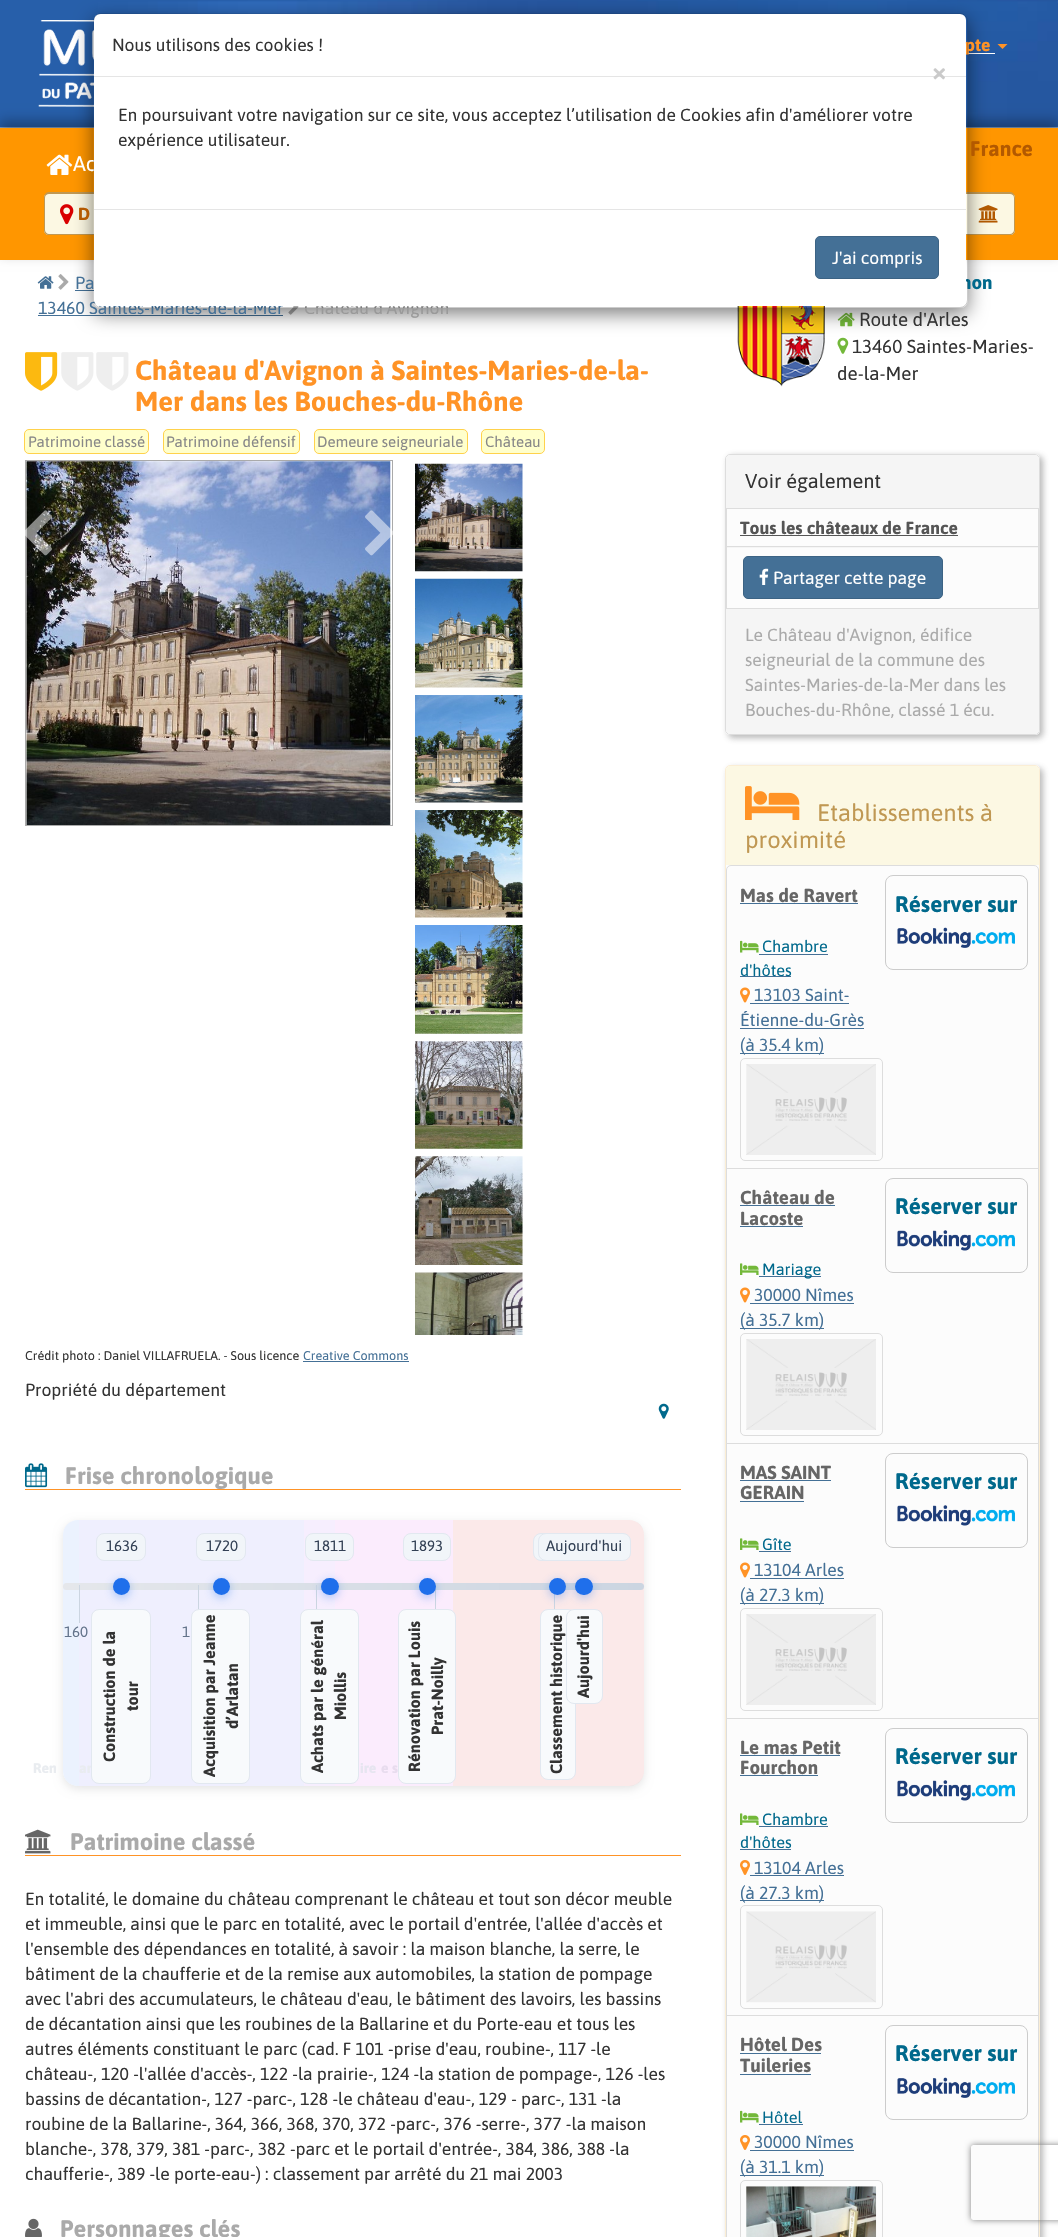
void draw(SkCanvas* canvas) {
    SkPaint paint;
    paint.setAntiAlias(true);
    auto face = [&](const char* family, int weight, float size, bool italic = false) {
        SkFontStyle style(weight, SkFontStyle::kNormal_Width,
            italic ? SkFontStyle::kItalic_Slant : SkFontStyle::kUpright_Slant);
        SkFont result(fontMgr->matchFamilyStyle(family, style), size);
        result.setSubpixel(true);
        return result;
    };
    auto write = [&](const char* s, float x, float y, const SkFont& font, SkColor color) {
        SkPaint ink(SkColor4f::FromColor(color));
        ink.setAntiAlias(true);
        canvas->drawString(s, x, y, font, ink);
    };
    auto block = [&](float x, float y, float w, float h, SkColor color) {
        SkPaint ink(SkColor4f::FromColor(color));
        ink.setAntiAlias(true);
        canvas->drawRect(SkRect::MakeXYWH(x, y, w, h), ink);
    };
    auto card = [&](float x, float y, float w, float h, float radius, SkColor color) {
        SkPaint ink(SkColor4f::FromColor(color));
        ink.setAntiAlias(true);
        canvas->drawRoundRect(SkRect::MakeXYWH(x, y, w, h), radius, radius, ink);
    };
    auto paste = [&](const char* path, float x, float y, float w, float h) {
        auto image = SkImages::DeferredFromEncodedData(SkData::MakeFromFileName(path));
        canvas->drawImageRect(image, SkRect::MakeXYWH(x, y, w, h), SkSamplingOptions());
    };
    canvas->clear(SK_ColorWHITE);
    block(0, 127, 1058, 1, SkColorSetRGB(238, 238, 238));
    paste("pic1.png", 0, 0, 1058, 128);
    paste("pic2.png", 38, 20, 56, 87);
    block(966, 53, 29, 1, SK_ColorWHITE);
    paint.setColor(SkColorSetRGB(255, 147, 38));
    canvas->drawPath(SkPathBuilder().moveTo(997.5f, 44).lineTo(1007.5f, 44).lineTo(1002.5f, 49).close().detach(), paint);
    paint.setColor(SkColorSetARGB(77, 0, 0, 0));
    paint.setMaskFilter(SkMaskFilter::MakeBlur(kNormal_SkBlurStyle, 6));
    canvas->drawRect(SkRect::MakeXYWH(0, 121, 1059, 133), paint);
    paint.setMaskFilter(nullptr);
    block(0, 128, 1058, 132, SkColorSetRGB(255, 150, 0));
    paste("pic3.png", 46, 154, 27, 21);
    paint.setColor(SkColorSetRGB(252, 248, 227));
    canvas->drawPath(SkPathBuilder().moveTo(49, 193).lineTo(229, 193).lineTo(229, 235).lineTo(49, 235).cubicTo(46, 235, 44, 233, 44, 230).lineTo(44, 198).cubicTo(44, 195, 46, 193, 49, 193).close().detach(), paint);
    paint.setColor(SkColorSetRGB(192, 152, 83));
    canvas->drawPath(SkPathBuilder(SkPathFillType::kEvenOdd).moveTo(49, 192).lineTo(229, 192).lineTo(229, 235).lineTo(49, 235).cubicTo(46, 235, 44, 233, 44, 230).lineTo(44, 198).cubicTo(44, 195, 46, 192, 49, 192).close().moveTo(49, 194).lineTo(229, 194).lineTo(229, 234).lineTo(49, 234).cubicTo(47, 234, 45, 232, 45, 230).lineTo(45, 198).cubicTo(45, 195, 47, 194, 49, 194).close().detach(), paint);
    paste("pic4.png", 60, 204, 14, 21);
    paint.setColor(SkColorSetRGB(252, 248, 227));
    canvas->drawPath(SkPathBuilder().moveTo(964, 193).lineTo(1010, 193).cubicTo(1013, 193, 1015, 195, 1015, 198).lineTo(1015, 230).cubicTo(1015, 233, 1013, 235, 1010, 235).lineTo(964, 235).close().detach(), paint);
    paint.setColor(SkColorSetRGB(192, 152, 83));
    canvas->drawPath(SkPathBuilder(SkPathFillType::kEvenOdd).moveTo(964, 192).lineTo(1010, 192).cubicTo(1013, 192, 1015, 195, 1015, 198).lineTo(1015, 230).cubicTo(1015, 233, 1013, 235, 1010, 235).lineTo(964, 235).close().moveTo(964, 194).lineTo(1010, 194).cubicTo(1012, 194, 1014, 195, 1014, 198).lineTo(1014, 230).cubicTo(1014, 232, 1012, 234, 1010, 234).lineTo(964, 234).close().detach(), paint);
    paste("pic5.png", 978, 205, 20, 18);
    paste("pic7.png", 58, 274, 11, 16);
    block(75, 290, 19, 1, SkColorSetRGB(68, 112, 150));
    block(38, 315, 245, 1, SkColorSetRGB(68, 112, 150));
    paste("pic8.png", 288, 306, 11, 9);
    paste("pic11.png", 737, 306, 88, 81);
    paste("pic12.png", 837, 312, 18, 15);
    paste("pic13.png", 837, 337, 12, 17);
    canvas->save();
    canvas->clipPath(SkPathBuilder(SkPathFillType::kEvenOdd).moveTo(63, 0).lineTo(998, 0).lineTo(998, 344).lineTo(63, 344).close().moveTo(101, 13).lineTo(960, 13).cubicTo(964.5f, 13, 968, 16.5f, 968, 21).lineTo(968, 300).cubicTo(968, 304.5f, 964.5f, 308, 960, 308).lineTo(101, 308).cubicTo(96.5f, 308, 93, 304.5f, 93, 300).lineTo(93, 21).cubicTo(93, 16.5f, 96.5f, 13, 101, 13).close().detach(), true);
    paint.setColor(SkColorSetARGB(128, 0, 0, 0));
    paint.setMaskFilter(SkMaskFilter::MakeBlur(kNormal_SkBlurStyle, 9.5f));
    canvas->drawRoundRect(SkRect::MakeXYWH(93, 19, 875, 295), 8, 8, paint);
    paint.setMaskFilter(nullptr);
    canvas->restore();
    auto kFont1 = face("Asap", 400, 17.5f);
    write("13460 Saintes-Maries-de-la-Mer", 38, 314, kFont1, SkColorSetRGB(68, 112, 150));
    write("Château d'Avignon", 304, 314, kFont1, SkColorSetRGB(153, 153, 153));
    auto kFont2 = face("Asap", 700, 18.75f);
    write("non", 961, 289, kFont2, SkColorSetRGB(0, 105, 140));
    card(94, 14, 872, 292, 6, SK_ColorWHITE);
    auto kFont3 = face("Asap", 700, 17.5f);
    write("pte", 965, 51, kFont3, SkColorSetRGB(255, 147, 38));
    auto kFont4 = face("Asap", 400, 21);
    write("Ac", 73, 171, kFont4, SK_ColorWHITE);
    paint.setStyle(SkPaint::kStroke_Style);
    paint.setStrokeWidth(1);
    paint.setColor(SkColorSetARGB(51, 0, 0, 0));
    canvas->drawRoundRect(SkRect::MakeXYWH(93.5f, 13.5f, 874, 294), 7.5f, 7.5f, paint);
    block(94, 76, 872, 1, SkColorSetRGB(229, 229, 229));
    write("Nous utilisons des cookies !", 112, 51, kFont1, SkColorSetRGB(51, 51, 51));
    auto kFont5 = face("Asap", 700, 26);
    write("×", 932, 80, kFont5, SkColorSetRGB(202, 202, 202));
    write("En poursuivant votre navigation sur ce site, vous acceptez l’utilisation de Cookies afin d'améliorer votre", 118, 121, kFont1, SkColorSetRGB(51, 51, 51));
    write("expérience utilisateur.", 118, 146, kFont1, SkColorSetRGB(51, 51, 51));
    block(94, 209, 872, 1, SkColorSetRGB(229, 229, 229));
    paint.setStyle(SkPaint::kFill_Style);
    paint.setColor(SkColorSetRGB(68, 112, 150));
    canvas->drawRoundRect(SkRect::MakeXYWH(815.5f, 236.5f, 123, 42), 4.5f, 4.5f, paint);
    paint.setStyle(SkPaint::kStroke_Style);
    paint.setColor(SkColorSetRGB(60, 99, 132));
    canvas->drawRoundRect(SkRect::MakeXYWH(815.5f, 236.5f, 123, 42), 4.5f, 4.5f, paint);
    write("J'ai compris", 832, 264, kFont1, SK_ColorWHITE);
    auto kFont6 = face("Asap", 700, 21);
    write("France", 970, 156, kFont6, SkColorSetRGB(179, 89, 0));
    write("D", 78, 220, kFont3, SkColorSetRGB(179, 89, 0));
    paste("pic6.png", 37, 276, 17, 13);
    write("Pa", 75, 289, kFont1, SkColorSetRGB(68, 112, 150));
    paste("pic9.png", 25, 352, 33, 39);
    paste("pic10.png", 61, 352, 33, 39);
    paste("pic10.png", 96, 352, 33, 39);
    auto kFont7 = face("Asap", 700, 27.5f);
    write("Château d'Avignon à Saintes-Maries-de-la-", 135, 380, kFont7, SkColorSetRGB(255, 147, 38));
    write("Mer dans les Bouches-du-Rhône", 135, 411, kFont7, SkColorSetRGB(255, 147, 38));
    paint.setStyle(SkPaint::kFill_Style);
    paint.setColor(SkColorSetRGB(255, 255, 204));
    canvas->drawRoundRect(SkRect::MakeXYWH(24.5f, 429.5f, 124, 24), 4.5f, 4.5f, paint);
    paint.setStyle(SkPaint::kStroke_Style);
    paint.setColor(SkColorSetRGB(255, 210, 76));
    canvas->drawRoundRect(SkRect::MakeXYWH(24.5f, 429.5f, 124, 24), 4.5f, 4.5f, paint);
    auto kFont8 = face("Asap", 400, 15);
    write("Patrimoine classé", 28, 447, kFont8, SkColorSetRGB(136, 136, 136));
    paint.setStyle(SkPaint::kFill_Style);
    paint.setColor(SkColorSetRGB(255, 255, 204));
    canvas->drawRoundRect(SkRect::MakeXYWH(163.5f, 429.5f, 136, 24), 4.5f, 4.5f, paint);
    paint.setStyle(SkPaint::kStroke_Style);
    paint.setColor(SkColorSetRGB(255, 210, 76));
    canvas->drawRoundRect(SkRect::MakeXYWH(163.5f, 429.5f, 136, 24), 4.5f, 4.5f, paint);
    write("Patrimoine défensif", 166, 447, kFont8, SkColorSetRGB(136, 136, 136));
    paint.setStyle(SkPaint::kFill_Style);
    paint.setColor(SkColorSetRGB(255, 255, 204));
    canvas->drawRoundRect(SkRect::MakeXYWH(314.5f, 429.5f, 153, 24), 4.5f, 4.5f, paint);
    paint.setStyle(SkPaint::kStroke_Style);
    paint.setColor(SkColorSetRGB(255, 210, 76));
    canvas->drawRoundRect(SkRect::MakeXYWH(314.5f, 429.5f, 153, 24), 4.5f, 4.5f, paint);
    write("Demeure seigneuriale", 317, 447, kFont8, SkColorSetRGB(136, 136, 136));
    paint.setStyle(SkPaint::kFill_Style);
    paint.setColor(SkColorSetRGB(255, 255, 204));
    canvas->drawRoundRect(SkRect::MakeXYWH(481.5f, 429.5f, 63, 24), 4.5f, 4.5f, paint);
    paint.setStyle(SkPaint::kStroke_Style);
    paint.setColor(SkColorSetRGB(255, 210, 76));
    canvas->drawRoundRect(SkRect::MakeXYWH(481.5f, 429.5f, 63, 24), 4.5f, 4.5f, paint);
    write("Château", 485, 447, kFont8, SkColorSetRGB(136, 136, 136));
    auto kFont9 = face("Asap", 400, 18.75f);
    write("Route d'Arles", 859, 326, kFont9, SkColorSetRGB(51, 51, 51));
    write("13460 Saintes-Maries-", 852, 353, kFont9, SkColorSetRGB(51, 51, 51));
    write("de-la-Mer", 837, 380, kFont9, SkColorSetRGB(51, 51, 51));
    paint.setColor(SkColorSetRGB(170, 170, 170));
    canvas->drawRect(SkRect::MakeXYWH(25.5f, 460.5f, 367, 365), paint);
    paste("pic14.png", 26, 461, 365, 364);
    paste("pic15.png", 25, 510, 27, 46);
    paste("pic16.png", 365, 510, 28, 46);
    paste("pic17.png", 415, 463, 108, 109);
    paste("pic18.png", 415, 578, 108, 110);
    paste("pic19.png", 415, 695, 108, 108);
    paste("pic20.png", 415, 810, 108, 108);
    paste("pic21.png", 415, 925, 108, 109);
    paste("pic22.png", 415, 1041, 108, 108);
    paste("pic23.png", 415, 1156, 108, 109);
    paste("pic24.png", 415, 1272, 108, 63);
    auto kFont10 = face("Asap", 400, 12.6f);
    write("Crédit photo : Daniel VILLAFRUELA. - Sous licence", 25, 1360, kFont10, SkColorSetRGB(51, 51, 51));
    write("Creative Commons", 303, 1360, kFont10, SkColorSetRGB(68, 112, 150));
    block(303, 1361, 106, 1, SkColorSetRGB(68, 112, 150));
    write("Propriété du département", 25, 1396, kFont1, SkColorSetRGB(51, 51, 51));
    paste("pic25.png", 658, 1403, 11, 16);
    block(25, 1489, 656, 1, SkColorSetRGB(255, 147, 38));
    paste("pic26.png", 25, 1463, 23, 25);
    auto kFont11 = face("Asap", 700, 23.75f);
    write("Frise chronologique", 65, 1484, kFont11, SkColorSetRGB(170, 170, 170));
    paint.setStyle(SkPaint::kFill_Style);
    paint.setColor(SkColorSetARGB(26, 0, 0, 0));
    paint.setMaskFilter(SkMaskFilter::MakeBlur(kNormal_SkBlurStyle, 5));
    canvas->drawRoundRect(SkRect::MakeXYWH(63, 1523, 581, 266), 15, 15, paint);
    paint.setMaskFilter(nullptr);
    card(63, 1520, 581, 266, 15, SK_ColorWHITE);
    block(79, 1520, 225, 266, SkColorSetARGB(26, 99, 102, 241));
    paint.setColor(SkColorSetARGB(26, 220, 38, 38));
    canvas->drawPath(SkPathBuilder().moveTo(453, 1520).lineTo(629, 1520).cubicTo(637.5f, 1520, 644, 1526.5f, 644, 1535).lineTo(644, 1771).cubicTo(644, 1779.5f, 637.5f, 1786, 629, 1786).lineTo(453, 1786).close().detach(), paint);
    paint.setColor(SkColorSetRGB(241, 245, 249));
    canvas->drawRoundRect(SkRect::MakeXYWH(96.5f, 1533.5f, 49, 27), 7.5f, 7.5f, paint);
    paint.setStyle(SkPaint::kStroke_Style);
    paint.setColor(SkColorSetRGB(226, 232, 240));
    canvas->drawRoundRect(SkRect::MakeXYWH(96.5f, 1533.5f, 49, 27), 7.5f, 7.5f, paint);
    write("1636", 106, 1551, kFont8, SkColorSetRGB(51, 65, 85));
    paint.setStyle(SkPaint::kFill_Style);
    paint.setColor(SkColorSetRGB(235, 242, 254));
    canvas->drawPath(SkPathBuilder().moveTo(78, 1520).lineTo(79, 1520).lineTo(79, 1786).lineTo(78, 1786).cubicTo(69.5f, 1786, 63, 1779.5f, 63, 1771).lineTo(63, 1535).cubicTo(63, 1526.5f, 69.5f, 1520, 78, 1520).close().detach(), paint);
    block(304, 1520, 31, 266, SkColorSetRGB(246, 238, 254));
    block(335, 1520, 118, 266, SkColorSetARGB(26, 217, 70, 239));
    {
        const SkColor colors[] = {SkColorSetRGB(229, 231, 235), SkColorSetRGB(203, 213, 225)};
        const float stops[] = {0, 1};
        const SkPoint ends[] = {{63, 1586}, {644, 1586}};
        paint.setShader(SkGradientShader::MakeLinear(ends, colors, stops, 2, SkTileMode::kClamp));
        paint.setAlpha(255);
    }
    canvas->drawRoundRect(SkRect::MakeXYWH(63, 1583, 581, 7), 3.5f, 3.5f, paint);
    paint.setShader(nullptr);
    paint.setColor(SkColorSetARGB(89, 31, 111, 235));
    paint.setMaskFilter(SkMaskFilter::MakeBlur(kNormal_SkBlurStyle, 5));
    canvas->drawRoundRect(SkRect::MakeXYWH(113, 1580, 17, 18), 8.5f, 8.5f, paint);
    paint.setMaskFilter(nullptr);
    paint.setColor(SkColorSetRGB(31, 111, 235));
    canvas->drawCircle(121.5f, 1586.5f, 8.5f, paint);
    auto kFont12 = face("Asap", 700, 14);
    write("an", 79, 1773, kFont12, SkColorSetRGB(233, 236, 240));
    paint.setColor(SkColorSetRGB(248, 250, 252));
    canvas->drawRoundRect(SkRect::MakeXYWH(91.5f, 1609.5f, 59, 174), 7.5f, 7.5f, paint);
    paint.setStyle(SkPaint::kStroke_Style);
    paint.setColor(SkColorSetRGB(226, 232, 240));
    canvas->drawRoundRect(SkRect::MakeXYWH(91.5f, 1609.5f, 59, 174), 7.5f, 7.5f, paint);
    auto kFont13 = face("Asap", 700, 16.25f);
    canvas->save();
    canvas->rotate(-90, 115, 1762);
    write("Construction de la", 115, 1762, kFont13, SkColorSetRGB(51, 51, 51));
    canvas->restore();
    canvas->save();
    canvas->rotate(-90, 138, 1711);
    write("tour", 138, 1711, kFont13, SkColorSetRGB(51, 51, 51));
    canvas->restore();
    paint.setStyle(SkPaint::kFill_Style);
    paint.setColor(SkColorSetRGB(241, 245, 249));
    canvas->drawRoundRect(SkRect::MakeXYWH(196.5f, 1533.5f, 49, 27), 7.5f, 7.5f, paint);
    paint.setStyle(SkPaint::kStroke_Style);
    paint.setColor(SkColorSetRGB(226, 232, 240));
    canvas->drawRoundRect(SkRect::MakeXYWH(196.5f, 1533.5f, 49, 27), 7.5f, 7.5f, paint);
    write("1720", 206, 1551, kFont8, SkColorSetRGB(51, 65, 85));
    block(198, 1585, 1, 25, SkColorSetRGB(203, 213, 225));
    paint.setStyle(SkPaint::kFill_Style);
    paint.setColor(SkColorSetARGB(89, 31, 111, 235));
    paint.setMaskFilter(SkMaskFilter::MakeBlur(kNormal_SkBlurStyle, 5));
    canvas->drawRoundRect(SkRect::MakeXYWH(213, 1580, 17, 18), 8.5f, 8.5f, paint);
    paint.setMaskFilter(nullptr);
    paint.setColor(SkColorSetRGB(31, 111, 235));
    canvas->drawCircle(221.5f, 1586.5f, 8.5f, paint);
    paint.setColor(SkColorSetRGB(248, 250, 252));
    canvas->drawRoundRect(SkRect::MakeXYWH(191.5f, 1609.5f, 58, 174), 7.5f, 7.5f, paint);
    paint.setStyle(SkPaint::kStroke_Style);
    paint.setColor(SkColorSetRGB(226, 232, 240));
    canvas->drawRoundRect(SkRect::MakeXYWH(191.5f, 1609.5f, 58, 174), 7.5f, 7.5f, paint);
    canvas->save();
    canvas->rotate(-90, 215, 1777);
    write("Acquisition par Jeanne", 215, 1777, kFont13, SkColorSetRGB(51, 51, 51));
    canvas->restore();
    canvas->save();
    canvas->rotate(-90, 238, 1729);
    write("d’Arlatan", 238, 1729, kFont13, SkColorSetRGB(51, 51, 51));
    canvas->restore();
    paint.setStyle(SkPaint::kFill_Style);
    paint.setColor(SkColorSetRGB(241, 245, 249));
    canvas->drawRoundRect(SkRect::MakeXYWH(305.5f, 1533.5f, 48, 27), 7.5f, 7.5f, paint);
    paint.setStyle(SkPaint::kStroke_Style);
    paint.setColor(SkColorSetRGB(226, 232, 240));
    canvas->drawRoundRect(SkRect::MakeXYWH(305.5f, 1533.5f, 48, 27), 7.5f, 7.5f, paint);
    write("1811", 314, 1551, kFont8, SkColorSetRGB(51, 65, 85));
    block(316, 1585, 1, 24, SkColorSetRGB(203, 213, 225));
    paint.setStyle(SkPaint::kFill_Style);
    paint.setColor(SkColorSetARGB(89, 31, 111, 235));
    paint.setMaskFilter(SkMaskFilter::MakeBlur(kNormal_SkBlurStyle, 5));
    canvas->drawRoundRect(SkRect::MakeXYWH(321, 1580, 18, 18), 9, 9, paint);
    paint.setMaskFilter(nullptr);
    card(321, 1578, 18, 17, 8.5f, SkColorSetRGB(31, 111, 235));
    paint.setColor(SkColorSetRGB(248, 250, 252));
    canvas->drawRoundRect(SkRect::MakeXYWH(300.5f, 1609.5f, 58, 174), 7.5f, 7.5f, paint);
    paint.setStyle(SkPaint::kStroke_Style);
    paint.setColor(SkColorSetRGB(226, 232, 240));
    canvas->drawRoundRect(SkRect::MakeXYWH(300.5f, 1609.5f, 58, 174), 7.5f, 7.5f, paint);
    canvas->save();
    canvas->rotate(-90, 323, 1773);
    write("Achats par le général", 323, 1773, kFont13, SkColorSetRGB(51, 51, 51));
    canvas->restore();
    canvas->save();
    canvas->rotate(-90, 346, 1720);
    write("Miollis", 346, 1720, kFont13, SkColorSetRGB(51, 51, 51));
    canvas->restore();
    paint.setStyle(SkPaint::kFill_Style);
    paint.setColor(SkColorSetRGB(241, 245, 249));
    canvas->drawRoundRect(SkRect::MakeXYWH(403.5f, 1533.5f, 47, 27), 7.5f, 7.5f, paint);
    paint.setStyle(SkPaint::kStroke_Style);
    paint.setColor(SkColorSetRGB(226, 232, 240));
    canvas->drawRoundRect(SkRect::MakeXYWH(403.5f, 1533.5f, 47, 27), 7.5f, 7.5f, paint);
    write("1893", 411, 1551, kFont8, SkColorSetRGB(51, 65, 85));
    block(435, 1585, 1, 24, SkColorSetRGB(203, 213, 225));
    paint.setStyle(SkPaint::kFill_Style);
    paint.setColor(SkColorSetARGB(89, 31, 111, 235));
    paint.setMaskFilter(SkMaskFilter::MakeBlur(kNormal_SkBlurStyle, 5));
    canvas->drawRoundRect(SkRect::MakeXYWH(419, 1580, 17, 18), 8.5f, 8.5f, paint);
    paint.setMaskFilter(nullptr);
    paint.setColor(SkColorSetRGB(31, 111, 235));
    canvas->drawCircle(427.5f, 1586.5f, 8.5f, paint);
    paint.setColor(SkColorSetRGB(248, 250, 252));
    canvas->drawRoundRect(SkRect::MakeXYWH(398.5f, 1609.5f, 57, 174), 7.5f, 7.5f, paint);
    paint.setStyle(SkPaint::kStroke_Style);
    paint.setColor(SkColorSetRGB(226, 232, 240));
    canvas->drawRoundRect(SkRect::MakeXYWH(398.5f, 1609.5f, 57, 174), 7.5f, 7.5f, paint);
    canvas->save();
    canvas->rotate(-90, 420, 1772);
    write("Rénovation par Louis", 420, 1772, kFont13, SkColorSetRGB(51, 51, 51));
    canvas->restore();
    canvas->save();
    canvas->rotate(-90, 443, 1735);
    write("Prat-Noilly", 443, 1735, kFont13, SkColorSetRGB(51, 51, 51));
    canvas->restore();
    paint.setStyle(SkPaint::kFill_Style);
    paint.setColor(SkColorSetRGB(241, 245, 249));
    canvas->drawRoundRect(SkRect::MakeXYWH(533.5f, 1533.5f, 49, 27), 7.5f, 7.5f, paint);
    paint.setStyle(SkPaint::kStroke_Style);
    paint.setColor(SkColorSetRGB(226, 232, 240));
    canvas->drawRoundRect(SkRect::MakeXYWH(533.5f, 1533.5f, 49, 27), 7.5f, 7.5f, paint);
    paint.setStyle(SkPaint::kFill_Style);
    paint.setColor(SkColorSetRGB(241, 245, 249));
    canvas->drawRoundRect(SkRect::MakeXYWH(538.5f, 1533.5f, 92, 27), 7.5f, 7.5f, paint);
    paint.setStyle(SkPaint::kStroke_Style);
    paint.setColor(SkColorSetRGB(226, 232, 240));
    canvas->drawRoundRect(SkRect::MakeXYWH(538.5f, 1533.5f, 92, 27), 7.5f, 7.5f, paint);
    write("Aujourd'hui", 546, 1551, kFont8, SkColorSetRGB(51, 65, 85));
    block(554, 1594, 1, 15, SkColorSetRGB(203, 213, 225));
    paint.setStyle(SkPaint::kFill_Style);
    paint.setColor(SkColorSetARGB(89, 31, 111, 235));
    paint.setMaskFilter(SkMaskFilter::MakeBlur(kNormal_SkBlurStyle, 5));
    canvas->drawRoundRect(SkRect::MakeXYWH(549, 1580, 17, 18), 8.5f, 8.5f, paint);
    paint.setMaskFilter(nullptr);
    paint.setColor(SkColorSetRGB(31, 111, 235));
    canvas->drawCircle(557.5f, 1586.5f, 8.5f, paint);
    paint.setColor(SkColorSetRGB(248, 250, 252));
    canvas->drawRoundRect(SkRect::MakeXYWH(540.5f, 1609.5f, 35, 170), 7.5f, 7.5f, paint);
    paint.setStyle(SkPaint::kStroke_Style);
    paint.setColor(SkColorSetRGB(226, 232, 240));
    canvas->drawRoundRect(SkRect::MakeXYWH(540.5f, 1609.5f, 35, 170), 7.5f, 7.5f, paint);
    paint.setStyle(SkPaint::kFill_Style);
    paint.setColor(SkColorSetARGB(89, 31, 111, 235));
    paint.setMaskFilter(SkMaskFilter::MakeBlur(kNormal_SkBlurStyle, 5));
    canvas->drawRoundRect(SkRect::MakeXYWH(575, 1580, 18, 18), 9, 9, paint);
    paint.setMaskFilter(nullptr);
    card(575, 1578, 18, 17, 8.5f, SkColorSetRGB(31, 111, 235));
    paint.setColor(SkColorSetRGB(248, 250, 252));
    canvas->drawRoundRect(SkRect::MakeXYWH(566.5f, 1609.5f, 36, 94), 7.5f, 7.5f, paint);
    paint.setStyle(SkPaint::kStroke_Style);
    paint.setColor(SkColorSetRGB(226, 232, 240));
    canvas->drawRoundRect(SkRect::MakeXYWH(566.5f, 1609.5f, 36, 94), 7.5f, 7.5f, paint);
    canvas->save();
    canvas->rotate(-90, 589, 1698);
    write("Aujourd'hui", 589, 1698, kFont13, SkColorSetRGB(51, 51, 51));
    canvas->restore();
    block(79, 1585, 1, 38, SkColorSetRGB(203, 213, 225));
    write("160", 64, 1637, kFont8, SkColorSetRGB(100, 116, 139));
    write("1", 182, 1637, kFont8, SkColorSetRGB(100, 116, 139));
    canvas->save();
    canvas->rotate(-90, 562, 1774);
    write("Classement historique", 562, 1774, kFont13, SkColorSetRGB(51, 51, 51));
    canvas->restore();
    write("Ren", 33, 1773, kFont12, SkColorSetRGB(233, 236, 240));
    write("ire", 360, 1773, kFont12, SkColorSetRGB(230, 229, 240));
    write("e s", 381, 1773, kFont12, SkColorSetRGB(232, 220, 238));
    block(25, 1855, 656, 1, SkColorSetRGB(255, 147, 38));
    paste("pic27.png", 25, 1829, 26, 25);
    write("Patrimoine classé", 70, 1850, kFont11, SkColorSetRGB(170, 170, 170));
    write("En totalité, le domaine du château comprenant le château et tout son décor meuble", 25, 1905, kFont1, SkColorSetRGB(51, 51, 51));
    write("et immeuble, ainsi que le parc en totalité, avec le portail d'entrée, l'allée d'accès et", 25, 1930, kFont1, SkColorSetRGB(51, 51, 51));
    write("l'ensemble des dépendances en totalité, à savoir : la maison blanche, la serre, le", 25, 1955, kFont1, SkColorSetRGB(51, 51, 51));
    write("bâtiment de la chaufferie et de la remise aux automobiles, la station de pompage", 25, 1980, kFont1, SkColorSetRGB(51, 51, 51));
    write("avec l'abri des accumulateurs, le château d'eau, le bâtiment des lavoirs, les bassins", 25, 2005, kFont1, SkColorSetRGB(51, 51, 51));
    write("de décantation ainsi que les roubines de la Ballarine et du Porte-eau et tous les", 25, 2030, kFont1, SkColorSetRGB(51, 51, 51));
    write("autres éléments constituant le parc (cad. F 101 -prise d'eau, roubine-, 117 -le", 25, 2055, kFont1, SkColorSetRGB(51, 51, 51));
    write("château-, 120 -l'allée d'accès-, 122 -la prairie-, 124 -la station de pompage-, 126 -les", 25, 2080, kFont1, SkColorSetRGB(51, 51, 51));
    write("bassins de décantation-, 127 -parc-, 128 -le château d'eau-, 129 - parc-, 131 -la", 25, 2105, kFont1, SkColorSetRGB(51, 51, 51));
    write("roubine de la Ballarine-, 364, 366, 368, 370, 372 -parc-, 376 -serre-, 377 -la maison", 25, 2130, kFont1, SkColorSetRGB(51, 51, 51));
    write("blanche-, 378, 379, 381 -parc-, 382 -parc et le portail d'entrée-, 384, 386, 388 -la", 25, 2155, kFont1, SkColorSetRGB(51, 51, 51));
    write("chaufferie-, 389 -le porte-eau-) : classement par arrêté du 21 mai 2003", 25, 2180, kFont1, SkColorSetRGB(51, 51, 51));
    paste("pic28.png", 25, 2218, 17, 19);
    write("Personnages clés", 60, 2237, kFont11, SkColorSetRGB(170, 170, 170));
    canvas->save();
    canvas->clipPath(SkPathBuilder(SkPathFillType::kEvenOdd).moveTo(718, 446).lineTo(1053, 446).lineTo(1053, 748).lineTo(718, 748).close().moveTo(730, 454).lineTo(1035, 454).cubicTo(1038, 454, 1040, 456, 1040, 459).lineTo(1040, 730).cubicTo(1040, 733, 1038, 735, 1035, 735).lineTo(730, 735).cubicTo(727, 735, 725, 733, 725, 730).lineTo(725, 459).cubicTo(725, 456, 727, 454, 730, 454).close().detach(), true);
    paint.setStyle(SkPaint::kFill_Style);
    paint.setColor(SkColorSetARGB(217, 170, 170, 170));
    paint.setMaskFilter(SkMaskFilter::MakeBlur(kNormal_SkBlurStyle, 3));
    canvas->drawRoundRect(SkRect::MakeXYWH(728, 456, 315, 282), 5, 5, paint);
    paint.setMaskFilter(nullptr);
    canvas->restore();
    paint.setColor(SkColorSetARGB(51, 238, 238, 238));
    canvas->drawRoundRect(SkRect::MakeXYWH(725.5f, 454.5f, 314, 280), 4.5f, 4.5f, paint);
    paint.setStyle(SkPaint::kStroke_Style);
    paint.setColor(SkColorSetRGB(221, 221, 221));
    canvas->drawRoundRect(SkRect::MakeXYWH(725.5f, 454.5f, 314, 280), 4.5f, 4.5f, paint);
    paint.setStyle(SkPaint::kFill_Style);
    paint.setColor(SkColorSetRGB(245, 245, 245));
    canvas->drawPath(SkPathBuilder().moveTo(730, 455).lineTo(1035, 455).cubicTo(1037, 455, 1039, 457, 1039, 459).lineTo(1039, 508).lineTo(726, 508).lineTo(726, 459).cubicTo(726, 457, 728, 455, 730, 455).close().detach(), paint);
    auto kFont14 = face("Asap", 400, 20);
    write("Voir également", 745, 488, kFont14, SkColorSetRGB(51, 51, 51));
    paint.setStyle(SkPaint::kStroke_Style);
    paint.setColor(SkColorSetRGB(221, 221, 221));
    canvas->drawRect(SkRect::MakeXYWH(726.5f, 508.5f, 312, 39), paint);
    write("Tous les châteaux de France", 740, 534, kFont3, SkColorSetRGB(85, 85, 85));
    block(740, 535, 218, 1, SkColorSetRGB(85, 85, 85));
    block(727, 547, 311, 1, SkColorSetARGB(179, 255, 255, 255));
    paint.setStyle(SkPaint::kFill_Style);
    paint.setColor(SkColorSetRGB(245, 245, 245));
    canvas->drawPath(SkPathBuilder().moveTo(726, 608).lineTo(1039, 608).lineTo(1039, 730).cubicTo(1039, 732, 1037, 734, 1035, 734).lineTo(730, 734).cubicTo(728, 734, 726, 732, 726, 730).close().detach(), paint);
    paint.setStyle(SkPaint::kStroke_Style);
    paint.setColor(SkColorSetRGB(221, 221, 221));
    canvas->drawRect(SkRect::MakeXYWH(726.5f, 546.5f, 312, 62), paint);
    paint.setStyle(SkPaint::kFill_Style);
    paint.setColor(SkColorSetRGB(68, 112, 150));
    canvas->drawRoundRect(SkRect::MakeXYWH(743.5f, 556.5f, 199, 42), 4.5f, 4.5f, paint);
    paint.setStyle(SkPaint::kStroke_Style);
    paint.setColor(SkColorSetRGB(60, 99, 132));
    canvas->drawRoundRect(SkRect::MakeXYWH(743.5f, 556.5f, 199, 42), 4.5f, 4.5f, paint);
    paste("pic29.png", 759, 568, 10, 17);
    write("Partager cette page", 773, 584, kFont1, SK_ColorWHITE);
    write("Le Château d'Avignon, édifice", 745, 641, kFont1, SkColorSetRGB(170, 170, 170));
    write("seigneurial de la commune des", 745, 666, kFont1, SkColorSetRGB(170, 170, 170));
    write("Saintes-Maries-de-la-Mer dans les", 745, 691, kFont1, SkColorSetRGB(170, 170, 170));
    write("Bouches-du-Rhône, classé 1 écu.", 745, 716, kFont1, SkColorSetRGB(170, 170, 170));
    canvas->save();
    canvas->clipPath(SkPathBuilder(SkPathFillType::kEvenOdd).moveTo(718, 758).lineTo(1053, 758).lineTo(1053, 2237).lineTo(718, 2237).close().moveTo(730, 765).lineTo(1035, 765).cubicTo(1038, 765, 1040, 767, 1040, 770).lineTo(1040, 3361).cubicTo(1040, 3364, 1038, 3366, 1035, 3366).lineTo(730, 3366).cubicTo(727, 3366, 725, 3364, 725, 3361).lineTo(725, 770).cubicTo(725, 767, 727, 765, 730, 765).close().detach(), true);
    paint.setStyle(SkPaint::kFill_Style);
    paint.setColor(SkColorSetARGB(217, 170, 170, 170));
    paint.setMaskFilter(SkMaskFilter::MakeBlur(kNormal_SkBlurStyle, 3));
    canvas->drawRoundRect(SkRect::MakeXYWH(728, 768, 315, 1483), 5, 5, paint);
    paint.setMaskFilter(nullptr);
    canvas->restore();
    paint.setColor(SkColorSetARGB(51, 238, 238, 238));
    canvas->drawRoundRect(SkRect::MakeXYWH(725.5f, 765.5f, 314, 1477), 4.5f, 4.5f, paint);
    paint.setStyle(SkPaint::kStroke_Style);
    paint.setColor(SkColorSetRGB(251, 238, 213));
    canvas->drawRoundRect(SkRect::MakeXYWH(725.5f, 765.5f, 314, 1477), 4.5f, 4.5f, paint);
    paint.setStyle(SkPaint::kFill_Style);
    paint.setColor(SkColorSetRGB(252, 248, 227));
    canvas->drawPath(SkPathBuilder().moveTo(730, 766).lineTo(1035, 766).cubicTo(1037, 766, 1039, 768, 1039, 770).lineTo(1039, 865).lineTo(726, 865).lineTo(726, 770).cubicTo(726, 768, 728, 766, 730, 766).close().detach(), paint);
    paste("pic30.png", 745, 786, 55, 34);
    auto kFont15 = face("Asap", 400, 23.75f);
    write("Etablissements à", 817, 821, kFont15, SkColorSetRGB(192, 152, 83));
    write("proximité", 745, 848, kFont15, SkColorSetRGB(192, 152, 83));
    paint.setStyle(SkPaint::kStroke_Style);
    paint.setColor(SkColorSetRGB(221, 221, 221));
    canvas->drawPath(SkPathBuilder().moveTo(731, 865.5f).lineTo(1034, 865.5f).cubicTo(1036.5f, 865.5f, 1038.5f, 867.5f, 1038.5f, 870).lineTo(1038.5f, 1168.5f).lineTo(726.5f, 1168.5f).lineTo(726.5f, 870).cubicTo(726.5f, 867.5f, 728.5f, 865.5f, 731, 865.5f).close().detach(), paint);
    write("Mas de Ravert", 740, 902, kFont2, SkColorSetRGB(102, 102, 102));
    block(740, 903, 118, 1, SkColorSetRGB(68, 112, 150));
    paste("pic31.png", 740, 940, 19, 13);
    auto kFont16 = face("Asap", 400, 16.25f);
    write("Chambre", 762, 952, kFont16, SkColorSetRGB(0, 105, 140));
    block(759, 954, 69, 1, SkColorSetRGB(68, 112, 150));
    block(740, 976, 51, 1, SkColorSetRGB(68, 112, 150));
    write("d'hôtes", 740, 976, kFont16, SkColorSetRGB(0, 105, 140));
    paste("pic32.png", 740, 987, 10, 16);
    write("13103 Saint-", 754, 1001, kFont1, SkColorSetRGB(68, 112, 150));
    block(750, 1003, 99, 1, SkColorSetRGB(68, 112, 150));
    write("Étienne-du-Grès", 740, 1026, kFont1, SkColorSetRGB(68, 112, 150));
    block(740, 1028, 124, 1, SkColorSetRGB(68, 112, 150));
    block(740, 1053, 84, 1, SkColorSetRGB(68, 112, 150));
    write("(à 35.4 km)", 740, 1051, kFont1, SkColorSetRGB(68, 112, 150));
    canvas->drawRoundRect(SkRect::MakeXYWH(740.5f, 1058.5f, 142, 102), 4.5f, 4.5f, paint);
    paste("pic33.png", 746, 1064, 130, 91);
    paint.setColor(SkColorSetRGB(204, 204, 204));
    canvas->drawRoundRect(SkRect::MakeXYWH(885.5f, 875.5f, 142, 94), 7.5f, 7.5f, paint);
    auto kFont17 = face("Asap", 700, 22.5f);
    write("Réserver sur", 895, 912, kFont17, SkColorSetRGB(0, 105, 140));
    paste("pic34.png", 897, 927, 118, 21);
    paint.setColor(SkColorSetRGB(221, 221, 221));
    canvas->drawRect(SkRect::MakeXYWH(726.5f, 1168.5f, 312, 275), paint);
    write("Château de", 740, 1204, kFont2, SkColorSetRGB(102, 102, 102));
    block(740, 1205, 95, 1, SkColorSetRGB(68, 112, 150));
    write("Lacoste", 740, 1225, kFont2, SkColorSetRGB(102, 102, 102));
    block(740, 1226, 63, 1, SkColorSetRGB(68, 112, 150));
    paste("pic35.png", 740, 1263, 19, 12);
    block(759, 1276, 62, 1, SkColorSetRGB(68, 112, 150));
    write("Mariage", 762, 1275, kFont16, SkColorSetRGB(0, 105, 140));
    paste("pic36.png", 740, 1287, 10, 16);
    write("30000 Nîmes", 754, 1301, kFont1, SkColorSetRGB(68, 112, 150));
    block(750, 1303, 104, 1, SkColorSetRGB(68, 112, 150));
    block(740, 1328, 84, 1, SkColorSetRGB(68, 112, 150));
    write("(à 35.7 km)", 740, 1326, kFont1, SkColorSetRGB(68, 112, 150));
    canvas->drawRoundRect(SkRect::MakeXYWH(740.5f, 1333.5f, 142, 102), 4.5f, 4.5f, paint);
    paste("pic33.png", 746, 1339, 130, 91);
    paint.setColor(SkColorSetRGB(204, 204, 204));
    canvas->drawRoundRect(SkRect::MakeXYWH(885.5f, 1178.5f, 142, 94), 7.5f, 7.5f, paint);
    write("Réserver sur", 895, 1214, kFont17, SkColorSetRGB(0, 105, 140));
    paste("pic37.png", 897, 1230, 118, 21);
    paint.setColor(SkColorSetRGB(221, 221, 221));
    canvas->drawRect(SkRect::MakeXYWH(726.5f, 1443.5f, 312, 275), paint);
    write("MAS SAINT", 740, 1479, kFont2, SkColorSetRGB(102, 102, 102));
    block(740, 1480, 91, 1, SkColorSetRGB(68, 112, 150));
    write("GERAIN", 740, 1499, kFont2, SkColorSetRGB(102, 102, 102));
    block(740, 1501, 64, 1, SkColorSetRGB(68, 112, 150));
    paste("pic35.png", 740, 1538, 19, 12);
    write("Gîte", 762, 1550, kFont16, SkColorSetRGB(0, 105, 140));
    block(759, 1551, 32, 1, SkColorSetRGB(68, 112, 150));
    paste("pic36.png", 740, 1562, 10, 16);
    write("13104 Arles", 754, 1576, kFont1, SkColorSetRGB(68, 112, 150));
    block(750, 1578, 94, 1, SkColorSetRGB(68, 112, 150));
    block(740, 1603, 84, 1, SkColorSetRGB(68, 112, 150));
    write("(à 27.3 km)", 740, 1601, kFont1, SkColorSetRGB(68, 112, 150));
    canvas->drawRoundRect(SkRect::MakeXYWH(740.5f, 1608.5f, 142, 102), 4.5f, 4.5f, paint);
    paste("pic33.png", 746, 1614, 130, 91);
    paint.setColor(SkColorSetRGB(204, 204, 204));
    canvas->drawRoundRect(SkRect::MakeXYWH(885.5f, 1453.5f, 142, 94), 7.5f, 7.5f, paint);
    write("Réserver sur", 895, 1489, kFont17, SkColorSetRGB(0, 105, 140));
    paste("pic37.png", 897, 1505, 118, 21);
    paint.setColor(SkColorSetRGB(221, 221, 221));
    canvas->drawRect(SkRect::MakeXYWH(726.5f, 1718.5f, 312, 297), paint);
    write("Le mas Petit", 740, 1754, kFont2, SkColorSetRGB(102, 102, 102));
    block(740, 1755, 100, 1, SkColorSetRGB(68, 112, 150));
    write("Fourchon", 740, 1774, kFont2, SkColorSetRGB(102, 102, 102));
    block(740, 1775, 78, 1, SkColorSetRGB(68, 112, 150));
    paste("pic35.png", 740, 1813, 19, 12);
    write("Chambre", 762, 1825, kFont16, SkColorSetRGB(0, 105, 140));
    block(759, 1826, 69, 1, SkColorSetRGB(68, 112, 150));
    write("d'hôtes", 740, 1848, kFont16, SkColorSetRGB(0, 105, 140));
    block(740, 1849, 51, 1, SkColorSetRGB(68, 112, 150));
    paste("pic38.png", 740, 1860, 10, 15);
    write("13104 Arles", 754, 1874, kFont1, SkColorSetRGB(68, 112, 150));
    block(750, 1875, 94, 1, SkColorSetRGB(68, 112, 150));
    block(740, 1900, 84, 1, SkColorSetRGB(68, 112, 150));
    write("(à 27.3 km)", 740, 1899, kFont1, SkColorSetRGB(68, 112, 150));
    canvas->drawRoundRect(SkRect::MakeXYWH(740.5f, 1905.5f, 142, 103), 4.5f, 4.5f, paint);
    paste("pic39.png", 746, 1911, 130, 92);
    paint.setColor(SkColorSetRGB(204, 204, 204));
    canvas->drawRoundRect(SkRect::MakeXYWH(885.5f, 1728.5f, 142, 94), 7.5f, 7.5f, paint);
    write("Réserver sur", 895, 1764, kFont17, SkColorSetRGB(0, 105, 140));
    paste("pic37.png", 897, 1780, 118, 21);
    paint.setColor(SkColorSetRGB(221, 221, 221));
    canvas->drawRect(SkRect::MakeXYWH(726.5f, 2015.5f, 312, 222), paint);
    write("Hôtel Des", 740, 2051, kFont2, SkColorSetRGB(102, 102, 102));
    block(740, 2053, 81, 1, SkColorSetRGB(68, 112, 150));
    write("Tuileries", 740, 2072, kFont2, SkColorSetRGB(102, 102, 102));
    block(740, 2074, 71, 1, SkColorSetRGB(68, 112, 150));
    paste("pic40.png", 740, 2110, 19, 13);
    write("Hôtel", 762, 2123, kFont16, SkColorSetRGB(0, 105, 140));
    block(759, 2124, 44, 1, SkColorSetRGB(68, 112, 150));
    paste("pic38.png", 740, 2135, 10, 15);
    write("30000 Nîmes", 754, 2148, kFont1, SkColorSetRGB(68, 112, 150));
    block(750, 2150, 104, 1, SkColorSetRGB(68, 112, 150));
    block(740, 2175, 84, 1, SkColorSetRGB(68, 112, 150));
    write("(à 31.1 km)", 740, 2173, kFont1, SkColorSetRGB(68, 112, 150));
    canvas->drawRoundRect(SkRect::MakeXYWH(740.5f, 2180.5f, 142, 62), 4.5f, 4.5f, paint);
    paste("pic41.png", 746, 2186, 131, 51);
    paint.setColor(SkColorSetRGB(204, 204, 204));
    canvas->drawRoundRect(SkRect::MakeXYWH(885.5f, 2025.5f, 142, 94), 7.5f, 7.5f, paint);
    write("Réserver sur", 895, 2061, kFont17, SkColorSetRGB(0, 105, 140));
    paste("pic42.png", 897, 2077, 118, 21);
    canvas->save();
    canvas->clipPath(SkPathBuilder(SkPathFillType::kEvenOdd).moveTo(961, 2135).lineTo(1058, 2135).lineTo(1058, 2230).lineTo(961, 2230).close().moveTo(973.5f, 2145).lineTo(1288.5f, 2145).cubicTo(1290, 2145, 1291, 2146, 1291, 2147.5f).lineTo(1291, 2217.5f).cubicTo(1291, 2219, 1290, 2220, 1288.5f, 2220).lineTo(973.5f, 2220).cubicTo(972, 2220, 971, 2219, 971, 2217.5f).lineTo(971, 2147.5f).cubicTo(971, 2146, 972, 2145, 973.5f, 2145).close().detach(), true);
    paint.setStyle(SkPaint::kFill_Style);
    paint.setColor(SkColorSetRGB(128, 128, 128));
    paint.setMaskFilter(SkMaskFilter::MakeBlur(kNormal_SkBlurStyle, 3));
    canvas->drawRoundRect(SkRect::MakeXYWH(971, 2145, 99, 75), 2.5f, 2.5f, paint);
    paint.setMaskFilter(nullptr);
    canvas->restore();
}
